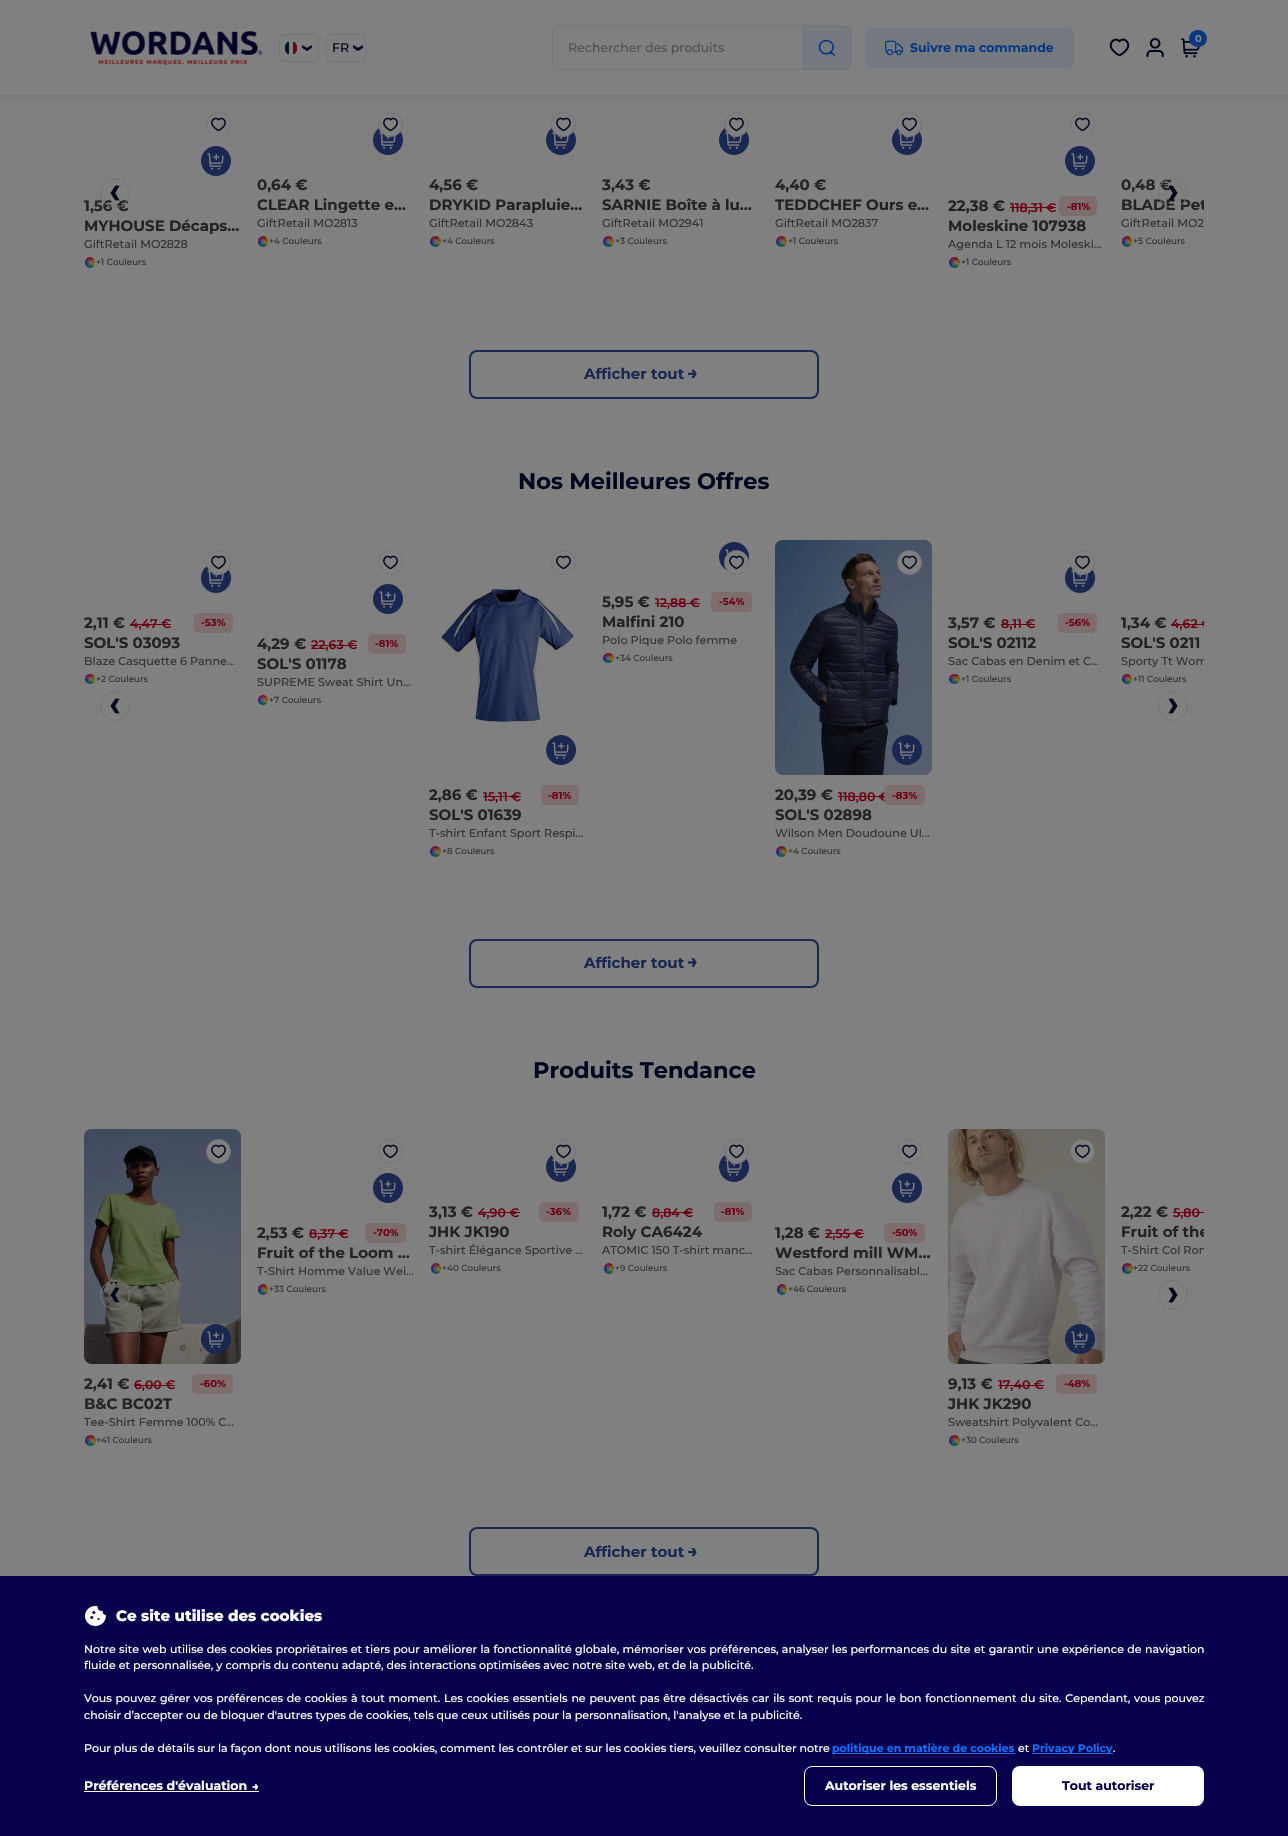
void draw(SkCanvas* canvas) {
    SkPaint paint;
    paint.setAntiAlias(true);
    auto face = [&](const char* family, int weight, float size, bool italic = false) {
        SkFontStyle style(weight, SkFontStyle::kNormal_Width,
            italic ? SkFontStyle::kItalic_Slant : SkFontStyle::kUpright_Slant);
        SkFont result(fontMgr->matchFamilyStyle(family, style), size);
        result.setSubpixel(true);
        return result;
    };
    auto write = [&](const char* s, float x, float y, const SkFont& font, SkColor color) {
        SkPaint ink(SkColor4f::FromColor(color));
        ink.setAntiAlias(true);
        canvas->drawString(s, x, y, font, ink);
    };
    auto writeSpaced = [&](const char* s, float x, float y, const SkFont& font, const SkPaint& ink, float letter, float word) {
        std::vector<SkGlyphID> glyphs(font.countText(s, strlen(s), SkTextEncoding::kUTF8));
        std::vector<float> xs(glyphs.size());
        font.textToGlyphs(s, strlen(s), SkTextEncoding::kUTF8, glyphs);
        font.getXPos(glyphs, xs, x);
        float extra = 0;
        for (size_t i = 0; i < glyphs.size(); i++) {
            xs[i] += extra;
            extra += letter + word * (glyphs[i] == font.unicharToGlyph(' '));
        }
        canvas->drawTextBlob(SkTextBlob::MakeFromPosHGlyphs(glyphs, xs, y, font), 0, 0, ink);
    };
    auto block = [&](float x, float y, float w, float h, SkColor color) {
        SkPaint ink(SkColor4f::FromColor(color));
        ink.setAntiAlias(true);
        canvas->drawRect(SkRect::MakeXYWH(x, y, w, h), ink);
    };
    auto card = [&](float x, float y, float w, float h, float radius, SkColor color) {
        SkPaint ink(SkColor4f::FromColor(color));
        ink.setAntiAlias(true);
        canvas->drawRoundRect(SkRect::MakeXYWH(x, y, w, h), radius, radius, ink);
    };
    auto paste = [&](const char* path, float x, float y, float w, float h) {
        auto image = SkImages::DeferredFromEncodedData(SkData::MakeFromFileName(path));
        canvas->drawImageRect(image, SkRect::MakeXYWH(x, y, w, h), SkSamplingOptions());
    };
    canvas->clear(SkColorSetRGB(128, 128, 128));
    paint.setColor(SkColorSetARGB(26, 0, 0, 0));
    paint.setMaskFilter(SkMaskFilter::MakeBlur(kNormal_SkBlurStyle, 2));
    canvas->drawRect(SkRect::MakeXYWH(0, 2, 1288, 95), paint);
    paint.setMaskFilter(nullptr);
    block(0, 0, 1288, 95, SkColorSetRGB(128, 128, 128));
    paste("pic1.png", 90, 31, 173, 34);
    paint.setStyle(SkPaint::kStroke_Style);
    paint.setStrokeWidth(1);
    paint.setColor(SkColorSetRGB(115, 116, 118));
    canvas->drawRoundRect(SkRect::MakeXYWH(279.5f, 34.5f, 39, 27), 4.5f, 4.5f, paint);
    canvas->save();
    canvas->clipPath(SkPathBuilder().moveTo(291, 41).cubicTo(294.5f, 41, 297, 43.5f, 297, 47).lineTo(297, 49).cubicTo(297, 52.5f, 294.5f, 55, 291, 55).cubicTo(287.5f, 55, 285, 52.5f, 285, 49).lineTo(285, 47).cubicTo(285, 43.5f, 287.5f, 41, 291, 41).close().detach(), true);
    block(285, 42, 4, 12, SkColorSetRGB(0, 19, 42));
    block(293, 42, 4, 12, SkColorSetRGB(103, 9, 19));
    canvas->restore();
    paste("pic2.png", 302, 45, 10, 6);
    canvas->drawRoundRect(SkRect::MakeXYWH(326.5f, 34.5f, 39, 27), 4.5f, 4.5f, paint);
    auto kFont1 = face("Montserrat", 500, 12.5f);
    write("FR", 332, 52, kFont1, SkColorSetRGB(0, 7, 29));
    paste("pic2.png", 353, 45, 10, 6);
    paste("pic3.png", 1109, 38, 21, 19);
    paste("pic4.png", 1146, 38, 18, 20);
    paste("pic5.png", 1181, 38, 19, 20);
    card(1189, 30, 18, 17, 8.5f, SkColorSetRGB(9, 56, 128));
    auto kFont2 = face("Montserrat", 700, 10);
    write("0", 1195, 42, kFont2, SkColorSetRGB(128, 128, 128));
    paint.setColor(SkColorSetRGB(115, 117, 122));
    canvas->drawRoundRect(SkRect::MakeXYWH(552.5f, 25.5f, 299, 44), 7.5f, 7.5f, paint);
    write("Rechercher des produits", 568, 52, kFont1, SkColorSetRGB(78, 82, 88));
    paint.setStyle(SkPaint::kFill_Style);
    paint.setColor(SkColorSetRGB(116, 121, 128));
    canvas->drawPath(SkPathBuilder().moveTo(802, 26).lineTo(844, 26).cubicTo(848, 26, 851, 29, 851, 33).lineTo(851, 62).cubicTo(851, 66, 848, 69, 844, 69).lineTo(802, 69).close().detach(), paint);
    paint.setColor(SkColorSetRGB(115, 117, 122));
    canvas->drawPath(SkPathBuilder(SkPathFillType::kEvenOdd).moveTo(802, 25).lineTo(844, 25).cubicTo(849, 25, 852, 28, 852, 32).lineTo(852, 62).cubicTo(852, 67, 849, 70, 844, 70).lineTo(802, 70).close().moveTo(802, 26).lineTo(844, 26).cubicTo(848, 26, 851, 29, 851, 32).lineTo(851, 62).cubicTo(851, 66, 848, 69, 844, 69).lineTo(802, 69).close().detach(), paint);
    paint.setStyle(SkPaint::kStroke_Style);
    paint.setStrokeWidth(1.7f);
    paint.setStrokeCap(SkPaint::kRound_Cap);
    paint.setStrokeJoin(SkPaint::kRound_Join);
    paint.setColor(SkColorSetRGB(9, 56, 128));
    canvas->drawPath(SkPathBuilder().moveTo(834.5f, 55.5f).lineTo(831, 52).moveTo(833, 47).cubicTo(833, 56, 819.5f, 56, 819.5f, 47).cubicTo(819.5f, 38.5f, 833, 38.5f, 833, 47).close().detach(), paint);
    card(865, 28, 209, 40, 8, SkColorSetRGB(116, 121, 128));
    paste("pic6.png", 885, 40, 18, 16);
    auto kFont3 = face("Montserrat", 700, 12.5f);
    write("Suivre ma commande", 910, 52, kFont3, SkColorSetRGB(9, 56, 128));
    canvas->save();
    canvas->clipRect(SkRect::MakeXYWH(84, 66, 1120, 254));
    auto kFont4 = face("Montserrat", 700, 15);
    write("1,56 €", 84, 211, kFont4, SkColorSetRGB(35, 35, 35));
    canvas->restore();
    paint.setStrokeWidth(1);
    paint.setStrokeCap(SkPaint::kButt_Cap);
    paint.setStrokeJoin(SkPaint::kMiter_Join);
    paint.setColor(SkColorSetRGB(115, 117, 122));
    canvas->drawCircle(115, 193, 14.5f, paint);
    paste("pic7.png", 110, 185, 10, 16);
    write("0,48 €", 1121, 190, kFont4, SkColorSetRGB(35, 35, 35));
    canvas->save();
    canvas->clipRect(SkRect::MakeXYWH(1121, 195, 83, 20));
    write("BLADE Pet", 1121, 210, kFont4, SkColorSetRGB(35, 35, 35));
    canvas->restore();
    canvas->drawCircle(1173, 193, 14.5f, paint);
    paste("pic8.png", 1168, 185, 10, 16);
    paint.setColor(SkColorSetRGB(115, 116, 118));
    canvas->drawCircle(218.5f, 124.5f, 12, paint);
    paste("pic9.png", 211, 117, 15, 15);
    paste("pic10.png", 201, 146, 30, 30);
    write("MYHOUSE Décaps…", 84, 231, kFont4, SkColorSetRGB(35, 35, 35));
    auto kFont5 = face("Montserrat", 500, 11.25f);
    write("GiftRetail MO2828", 84, 248, kFont5, SkColorSetRGB(51, 51, 51));
    paste("pic11.png", 85, 257, 10, 11);
    auto kFont6 = face("Montserrat", 500, 8.75f);
    write("+1 Couleurs", 96, 265, kFont6, SkColorSetRGB(51, 51, 51));
    paste("pic12.png", 373, 128, 30, 27);
    paint.setStyle(SkPaint::kFill_Style);
    paint.setColor(SkColorSetRGB(128, 128, 128));
    canvas->drawCircle(390.5f, 124.5f, 12, paint);
    paint.setStyle(SkPaint::kStroke_Style);
    paint.setColor(SkColorSetRGB(115, 116, 118));
    canvas->drawCircle(390.5f, 124.5f, 12, paint);
    paste("pic9.png", 383, 117, 15, 15);
    write("0,64 €", 257, 190, kFont4, SkColorSetRGB(35, 35, 35));
    write("CLEAR Lingette e…", 257, 210, kFont4, SkColorSetRGB(35, 35, 35));
    write("GiftRetail MO2813", 257, 227, kFont5, SkColorSetRGB(51, 51, 51));
    paste("pic11.png", 258, 236, 10, 11);
    write("+4 Couleurs", 269, 244, kFont6, SkColorSetRGB(51, 51, 51));
    paste("pic12.png", 546, 128, 30, 27);
    paint.setStyle(SkPaint::kFill_Style);
    paint.setColor(SkColorSetRGB(128, 128, 128));
    canvas->drawCircle(563.5f, 124.5f, 12, paint);
    paint.setStyle(SkPaint::kStroke_Style);
    paint.setColor(SkColorSetRGB(115, 116, 118));
    canvas->drawCircle(563.5f, 124.5f, 12, paint);
    paste("pic9.png", 556, 117, 15, 15);
    write("4,56 €", 429, 190, kFont4, SkColorSetRGB(35, 35, 35));
    write("DRYKID Parapluie…", 429, 210, kFont4, SkColorSetRGB(35, 35, 35));
    write("GiftRetail MO2843", 429, 227, kFont5, SkColorSetRGB(51, 51, 51));
    paste("pic13.png", 430, 236, 11, 11);
    write("+4 Couleurs", 442, 244, kFont6, SkColorSetRGB(51, 51, 51));
    paste("pic12.png", 719, 128, 30, 27);
    paint.setStyle(SkPaint::kFill_Style);
    paint.setColor(SkColorSetRGB(128, 128, 128));
    canvas->drawCircle(736.5f, 124.5f, 12, paint);
    paint.setStyle(SkPaint::kStroke_Style);
    paint.setColor(SkColorSetRGB(115, 116, 118));
    canvas->drawCircle(736.5f, 124.5f, 12, paint);
    paste("pic9.png", 729, 117, 15, 15);
    write("3,43 €", 602, 190, kFont4, SkColorSetRGB(35, 35, 35));
    write("SARNIE Boîte à lu…", 602, 210, kFont4, SkColorSetRGB(35, 35, 35));
    write("GiftRetail MO2941", 602, 227, kFont5, SkColorSetRGB(51, 51, 51));
    paste("pic14.png", 603, 236, 11, 11);
    write("+3 Couleurs", 615, 244, kFont6, SkColorSetRGB(51, 51, 51));
    paste("pic12.png", 892, 128, 30, 27);
    paint.setStyle(SkPaint::kFill_Style);
    paint.setColor(SkColorSetRGB(128, 128, 128));
    canvas->drawCircle(909.5f, 124.5f, 12, paint);
    paint.setStyle(SkPaint::kStroke_Style);
    paint.setColor(SkColorSetRGB(115, 116, 118));
    canvas->drawCircle(909.5f, 124.5f, 12, paint);
    paste("pic9.png", 902, 117, 15, 15);
    write("4,40 €", 775, 190, kFont4, SkColorSetRGB(35, 35, 35));
    write("TEDDCHEF Ours e…", 775, 210, kFont4, SkColorSetRGB(35, 35, 35));
    write("GiftRetail MO2837", 775, 227, kFont5, SkColorSetRGB(51, 51, 51));
    paste("pic13.png", 776, 236, 11, 11);
    write("+1 Couleurs", 788, 244, kFont6, SkColorSetRGB(51, 51, 51));
    canvas->drawCircle(1082.5f, 124.5f, 12, paint);
    paste("pic9.png", 1075, 117, 15, 15);
    paste("pic10.png", 1065, 146, 30, 30);
    write("22,38 €", 948, 211, kFont4, SkColorSetRGB(35, 35, 35));
    auto kFont7 = face("Montserrat", 600, 12.5f);
    write("118,31 €", 1010, 212, kFont7, SkColorSetRGB(108, 0, 20));
    block(1010, 207, 46, 1, SkColorSetRGB(108, 0, 20));
    card(1059, 196, 38, 20, 5, SkColorSetRGB(126, 109, 109));
    write("-81%", 1067, 210, kFont2, SkColorSetRGB(108, 0, 20));
    write("Moleskine 107938", 948, 231, kFont4, SkColorSetRGB(35, 35, 35));
    write("Agenda L 12 mois Moleski…", 948, 248, kFont5, SkColorSetRGB(51, 51, 51));
    paste("pic13.png", 949, 257, 11, 11);
    write("+1 Couleurs", 961, 265, kFont6, SkColorSetRGB(51, 51, 51));
    write("GiftRetail MO2", 1121, 227, kFont5, SkColorSetRGB(51, 51, 51));
    paste("pic11.png", 1122, 236, 10, 11);
    write("+5 Couleurs", 1133, 244, kFont6, SkColorSetRGB(51, 51, 51));
    paint.setStrokeWidth(2);
    paint.setColor(SkColorSetRGB(26, 39, 81));
    canvas->drawRoundRect(SkRect::MakeXYWH(470, 351, 348, 47), 7, 7, paint);
    write("Afficher tout", 584, 379, kFont4, SkColorSetRGB(26, 39, 81));
    paste("pic15.png", 688, 369, 9, 9);
    auto kFont8 = face("Montserrat", 700, 22.5f);
    write("Nos Meilleures Offres", 518, 489, kFont8, SkColorSetRGB(0, 7, 29));
    paste("pic12.png", 201, 566, 30, 27);
    paint.setStyle(SkPaint::kFill_Style);
    paint.setColor(SkColorSetRGB(128, 128, 128));
    canvas->drawCircle(218.5f, 562.5f, 12, paint);
    paint.setStyle(SkPaint::kStroke_Style);
    paint.setStrokeWidth(1);
    paint.setColor(SkColorSetRGB(115, 116, 118));
    canvas->drawCircle(218.5f, 562.5f, 12, paint);
    paste("pic9.png", 211, 555, 15, 15);
    write("2,11 €", 84, 628, kFont4, SkColorSetRGB(35, 35, 35));
    write("4,47 €", 130, 628, kFont7, SkColorSetRGB(108, 0, 20));
    block(130, 624, 41, 1, SkColorSetRGB(108, 0, 20));
    card(194, 613, 39, 20, 5, SkColorSetRGB(126, 109, 109));
    write("-53%", 201, 626, kFont2, SkColorSetRGB(108, 0, 20));
    write("SOL'S 03093", 84, 648, kFont4, SkColorSetRGB(35, 35, 35));
    write("Blaze Casquette 6 Panne…", 84, 665, kFont5, SkColorSetRGB(51, 51, 51));
    paste("pic16.png", 85, 674, 10, 10);
    write("+2 Couleurs", 96, 682, kFont6, SkColorSetRGB(51, 51, 51));
    canvas->drawCircle(390.5f, 562.5f, 12, paint);
    paste("pic9.png", 383, 555, 15, 15);
    paste("pic10.png", 373, 584, 30, 30);
    write("4,29 €", 257, 649, kFont4, SkColorSetRGB(35, 35, 35));
    write("22,63 €", 311, 649, kFont7, SkColorSetRGB(108, 0, 20));
    block(311, 645, 46, 1, SkColorSetRGB(108, 0, 20));
    card(368, 634, 38, 20, 5, SkColorSetRGB(126, 109, 109));
    write("-81%", 375, 647, kFont2, SkColorSetRGB(108, 0, 20));
    write("SOL'S 01178", 257, 669, kFont4, SkColorSetRGB(35, 35, 35));
    write("SUPREME Sweat Shirt Un…", 257, 686, kFont5, SkColorSetRGB(51, 51, 51));
    paste("pic16.png", 258, 695, 10, 10);
    write("+7 Couleurs", 269, 703, kFont6, SkColorSetRGB(51, 51, 51));
    paste("pic17.png", 719, 542, 30, 29);
    paint.setStyle(SkPaint::kFill_Style);
    paint.setColor(SkColorSetRGB(128, 128, 128));
    canvas->drawCircle(736.5f, 562.5f, 12, paint);
    paint.setStyle(SkPaint::kStroke_Style);
    paint.setColor(SkColorSetRGB(115, 116, 118));
    canvas->drawCircle(736.5f, 562.5f, 12, paint);
    paste("pic9.png", 729, 555, 15, 15);
    write("5,95 €", 602, 607, kFont4, SkColorSetRGB(35, 35, 35));
    write("12,88 €", 655, 607, kFont7, SkColorSetRGB(108, 0, 20));
    block(655, 603, 45, 1, SkColorSetRGB(108, 0, 20));
    card(711, 592, 41, 20, 5, SkColorSetRGB(126, 109, 109));
    write("-54%", 719, 605, kFont2, SkColorSetRGB(108, 0, 20));
    write("Malfini 210", 602, 627, kFont4, SkColorSetRGB(35, 35, 35));
    write("Polo Pique Polo femme", 602, 644, kFont5, SkColorSetRGB(51, 51, 51));
    paste("pic18.png", 603, 653, 11, 10);
    write("+34 Couleurs", 615, 661, kFont6, SkColorSetRGB(51, 51, 51));
    paste("pic12.png", 1065, 566, 30, 27);
    paint.setStyle(SkPaint::kFill_Style);
    paint.setColor(SkColorSetRGB(128, 128, 128));
    canvas->drawCircle(1082.5f, 562.5f, 12, paint);
    paint.setStyle(SkPaint::kStroke_Style);
    paint.setColor(SkColorSetRGB(115, 116, 118));
    canvas->drawCircle(1082.5f, 562.5f, 12, paint);
    paste("pic9.png", 1075, 555, 15, 15);
    write("3,57 €", 948, 628, kFont4, SkColorSetRGB(35, 35, 35));
    write("8,11 €", 1001, 628, kFont7, SkColorSetRGB(108, 0, 20));
    block(1001, 624, 34, 1, SkColorSetRGB(108, 0, 20));
    card(1058, 613, 39, 20, 5, SkColorSetRGB(126, 109, 109));
    write("-56%", 1065, 626, kFont2, SkColorSetRGB(108, 0, 20));
    write("SOL'S 02112", 948, 648, kFont4, SkColorSetRGB(35, 35, 35));
    write("Sac Cabas en Denim et C…", 948, 665, kFont5, SkColorSetRGB(51, 51, 51));
    paste("pic18.png", 949, 674, 11, 10);
    write("+1 Couleurs", 961, 682, kFont6, SkColorSetRGB(51, 51, 51));
    write("1,34 €", 1121, 628, kFont4, SkColorSetRGB(35, 35, 35));
    canvas->save();
    canvas->clipRect(SkRect::MakeXYWH(84, 504, 1120, 405));
    write("4,62 €", 1171, 628, kFont7, SkColorSetRGB(108, 0, 20));
    canvas->restore();
    block(1171, 624, 33, 1, SkColorSetRGB(108, 0, 20));
    write("SOL'S 0211", 1121, 648, kFont4, SkColorSetRGB(35, 35, 35));
    canvas->save();
    canvas->clipRect(SkRect::MakeXYWH(1121, 653, 83, 17));
    write("Sporty Tt Wom", 1121, 665, kFont5, SkColorSetRGB(51, 51, 51));
    canvas->restore();
    paste("pic16.png", 1122, 674, 10, 10);
    write("+11 Couleurs", 1133, 682, kFont6, SkColorSetRGB(51, 51, 51));
    canvas->drawCircle(563.5f, 562.5f, 12, paint);
    paste("pic9.png", 556, 555, 15, 15);
    paste("pic19.png", 441, 588, 133, 136);
    paste("pic10.png", 546, 735, 30, 30);
    write("2,86 €", 429, 800, kFont4, SkColorSetRGB(35, 35, 35));
    write("15,11 €", 483, 801, kFont7, SkColorSetRGB(108, 0, 20));
    block(483, 796, 38, 1, SkColorSetRGB(108, 0, 20));
    card(541, 785, 38, 20, 5, SkColorSetRGB(126, 109, 109));
    write("-81%", 548, 799, kFont2, SkColorSetRGB(108, 0, 20));
    write("SOL'S 01639", 429, 820, kFont4, SkColorSetRGB(35, 35, 35));
    write("T-shirt Enfant Sport Respi…", 429, 837, kFont5, SkColorSetRGB(51, 51, 51));
    paste("pic14.png", 430, 846, 11, 11);
    write("+8 Couleurs", 442, 854, kFont6, SkColorSetRGB(51, 51, 51));
    paste("pic20.png", 775, 540, 157, 235);
    paint.setStyle(SkPaint::kFill_Style);
    paint.setColor(SkColorSetRGB(128, 128, 128));
    canvas->drawCircle(909.5f, 562.5f, 12, paint);
    paint.setStyle(SkPaint::kStroke_Style);
    paint.setColor(SkColorSetRGB(115, 116, 118));
    canvas->drawCircle(909.5f, 562.5f, 12, paint);
    paste("pic9.png", 902, 555, 15, 15);
    paste("pic21.png", 892, 735, 30, 30);
    write("20,39 €", 775, 800, kFont4, SkColorSetRGB(35, 35, 35));
    write("118,80 €", 838, 801, kFont7, SkColorSetRGB(108, 0, 20));
    block(838, 796, 51, 1, SkColorSetRGB(108, 0, 20));
    card(884, 785, 41, 20, 5, SkColorSetRGB(126, 109, 109));
    write("-83%", 892, 799, kFont2, SkColorSetRGB(108, 0, 20));
    write("SOL'S 02898", 775, 820, kFont4, SkColorSetRGB(35, 35, 35));
    write("Wilson Men Doudoune Ul…", 775, 837, kFont5, SkColorSetRGB(51, 51, 51));
    paste("pic13.png", 776, 846, 11, 11);
    write("+4 Couleurs", 788, 854, kFont6, SkColorSetRGB(51, 51, 51));
    paint.setColor(SkColorSetRGB(115, 117, 122));
    canvas->drawCircle(115, 706, 14.5f, paint);
    paste("pic22.png", 110, 698, 10, 16);
    canvas->drawCircle(1173, 706, 14.5f, paint);
    paste("pic23.png", 1168, 698, 10, 16);
    paint.setStrokeWidth(2);
    paint.setColor(SkColorSetRGB(26, 39, 81));
    canvas->drawRoundRect(SkRect::MakeXYWH(470, 940, 348, 47), 7, 7, paint);
    write("Afficher tout", 584, 968, kFont4, SkColorSetRGB(26, 39, 81));
    paste("pic24.png", 688, 958, 9, 9);
    write("Produits Tendance", 533, 1078, kFont8, SkColorSetRGB(0, 7, 29));
    paint.setStrokeWidth(1);
    paint.setColor(SkColorSetRGB(115, 116, 118));
    canvas->drawCircle(390.5f, 1151.5f, 12, paint);
    paste("pic9.png", 383, 1144, 15, 15);
    paste("pic10.png", 373, 1173, 30, 30);
    write("2,53 €", 257, 1238, kFont4, SkColorSetRGB(35, 35, 35));
    write("8,37 €", 309, 1238, kFont7, SkColorSetRGB(108, 0, 20));
    block(309, 1233, 39, 1, SkColorSetRGB(108, 0, 20));
    card(365, 1223, 41, 20, 5, SkColorSetRGB(126, 109, 109));
    write("-70%", 373, 1236, kFont2, SkColorSetRGB(108, 0, 20));
    write("Fruit of the Loom …", 257, 1258, kFont4, SkColorSetRGB(35, 35, 35));
    write("T-Shirt Homme Value Wei…", 257, 1275, kFont5, SkColorSetRGB(51, 51, 51));
    paste("pic25.png", 258, 1284, 10, 11);
    write("+33 Couleurs", 269, 1292, kFont6, SkColorSetRGB(51, 51, 51));
    paste("pic12.png", 546, 1155, 30, 27);
    paint.setStyle(SkPaint::kFill_Style);
    paint.setColor(SkColorSetRGB(128, 128, 128));
    canvas->drawCircle(563.5f, 1151.5f, 12, paint);
    paint.setStyle(SkPaint::kStroke_Style);
    paint.setColor(SkColorSetRGB(115, 116, 118));
    canvas->drawCircle(563.5f, 1151.5f, 12, paint);
    paste("pic9.png", 556, 1144, 15, 15);
    write("3,13 €", 429, 1217, kFont4, SkColorSetRGB(35, 35, 35));
    write("4,90 €", 478, 1217, kFont7, SkColorSetRGB(108, 0, 20));
    block(478, 1212, 42, 1, SkColorSetRGB(108, 0, 20));
    card(539, 1202, 40, 20, 5, SkColorSetRGB(126, 109, 109));
    write("-36%", 546, 1215, kFont2, SkColorSetRGB(108, 0, 20));
    write("JHK JK190", 429, 1237, kFont4, SkColorSetRGB(35, 35, 35));
    write("T-shirt Élégance Sportive …", 429, 1254, kFont5, SkColorSetRGB(51, 51, 51));
    paste("pic11.png", 431, 1263, 10, 11);
    write("+40 Couleurs", 442, 1271, kFont6, SkColorSetRGB(51, 51, 51));
    paste("pic12.png", 719, 1155, 30, 27);
    paint.setStyle(SkPaint::kFill_Style);
    paint.setColor(SkColorSetRGB(128, 128, 128));
    canvas->drawCircle(736.5f, 1151.5f, 12, paint);
    paint.setStyle(SkPaint::kStroke_Style);
    paint.setColor(SkColorSetRGB(115, 116, 118));
    canvas->drawCircle(736.5f, 1151.5f, 12, paint);
    paste("pic9.png", 729, 1144, 15, 15);
    write("1,72 €", 602, 1217, kFont4, SkColorSetRGB(35, 35, 35));
    write("8,84 €", 652, 1217, kFont7, SkColorSetRGB(108, 0, 20));
    block(652, 1212, 41, 1, SkColorSetRGB(108, 0, 20));
    card(714, 1202, 38, 20, 5, SkColorSetRGB(126, 109, 109));
    write("-81%", 721, 1215, kFont2, SkColorSetRGB(108, 0, 20));
    write("Roly CA6424", 602, 1237, kFont4, SkColorSetRGB(35, 35, 35));
    write("ATOMIC 150 T-shirt manc…", 602, 1254, kFont5, SkColorSetRGB(51, 51, 51));
    paste("pic11.png", 604, 1263, 10, 11);
    write("+9 Couleurs", 615, 1271, kFont6, SkColorSetRGB(51, 51, 51));
    canvas->drawCircle(909.5f, 1151.5f, 12, paint);
    paste("pic9.png", 902, 1144, 15, 15);
    paste("pic10.png", 892, 1173, 30, 30);
    write("1,28 €", 775, 1238, kFont4, SkColorSetRGB(35, 35, 35));
    write("2,55 €", 825, 1238, kFont7, SkColorSetRGB(108, 0, 20));
    block(825, 1233, 39, 1, SkColorSetRGB(108, 0, 20));
    card(884, 1223, 41, 20, 5, SkColorSetRGB(126, 109, 109));
    write("-50%", 892, 1236, kFont2, SkColorSetRGB(108, 0, 20));
    write("Westford mill WM…", 775, 1258, kFont4, SkColorSetRGB(35, 35, 35));
    write("Sac Cabas Personnalisabl…", 775, 1275, kFont5, SkColorSetRGB(51, 51, 51));
    paste("pic11.png", 777, 1284, 10, 11);
    write("+46 Couleurs", 788, 1292, kFont6, SkColorSetRGB(51, 51, 51));
    write("2,22 €", 1121, 1217, kFont4, SkColorSetRGB(35, 35, 35));
    write("5,80", 1173, 1217, kFont7, SkColorSetRGB(108, 0, 20));
    block(1173, 1212, 31, 1, SkColorSetRGB(108, 0, 20));
    canvas->save();
    canvas->clipRect(SkRect::MakeXYWH(1121, 1222, 83, 20));
    write("Fruit of the", 1121, 1237, kFont4, SkColorSetRGB(35, 35, 35));
    canvas->restore();
    canvas->save();
    canvas->clipRect(SkRect::MakeXYWH(1121, 1242, 83, 17));
    write("T-Shirt Col Ron", 1121, 1254, kFont5, SkColorSetRGB(51, 51, 51));
    canvas->restore();
    paste("pic26.png", 1122, 1263, 11, 11);
    write("+22 Couleurs", 1133, 1271, kFont6, SkColorSetRGB(51, 51, 51));
    paste("pic27.png", 84, 1129, 157, 235);
    paint.setStyle(SkPaint::kFill_Style);
    paint.setColor(SkColorSetRGB(128, 128, 128));
    canvas->drawCircle(218.5f, 1151.5f, 12, paint);
    paint.setStyle(SkPaint::kStroke_Style);
    paint.setColor(SkColorSetRGB(115, 116, 118));
    canvas->drawCircle(218.5f, 1151.5f, 12, paint);
    paste("pic9.png", 211, 1144, 15, 15);
    paste("pic28.png", 201, 1324, 30, 30);
    write("2,41 €", 84, 1389, kFont4, SkColorSetRGB(35, 35, 35));
    write("6,00 €", 134, 1389, kFont7, SkColorSetRGB(108, 0, 20));
    block(134, 1385, 41, 1, SkColorSetRGB(108, 0, 20));
    card(192, 1374, 41, 20, 5, SkColorSetRGB(126, 109, 109));
    write("-60%", 200, 1387, kFont2, SkColorSetRGB(108, 0, 20));
    write("B&C BC02T", 84, 1409, kFont4, SkColorSetRGB(35, 35, 35));
    write("Tee-Shirt Femme 100% C…", 84, 1426, kFont5, SkColorSetRGB(51, 51, 51));
    paste("pic14.png", 85, 1435, 11, 11);
    write("+41 Couleurs", 96, 1443, kFont6, SkColorSetRGB(51, 51, 51));
    paste("pic29.png", 948, 1129, 157, 235);
    paint.setStyle(SkPaint::kFill_Style);
    paint.setColor(SkColorSetRGB(128, 128, 128));
    canvas->drawCircle(1082.5f, 1151.5f, 12, paint);
    paint.setStyle(SkPaint::kStroke_Style);
    paint.setColor(SkColorSetRGB(115, 116, 118));
    canvas->drawCircle(1082.5f, 1151.5f, 12, paint);
    paste("pic9.png", 1075, 1144, 15, 15);
    paste("pic30.png", 1065, 1324, 30, 30);
    write("9,13 €", 948, 1389, kFont4, SkColorSetRGB(35, 35, 35));
    write("17,40 €", 998, 1389, kFont7, SkColorSetRGB(108, 0, 20));
    block(998, 1385, 46, 1, SkColorSetRGB(108, 0, 20));
    card(1056, 1374, 41, 20, 5, SkColorSetRGB(126, 109, 109));
    write("-48%", 1064, 1387, kFont2, SkColorSetRGB(108, 0, 20));
    write("JHK JK290", 948, 1409, kFont4, SkColorSetRGB(35, 35, 35));
    write("Sweatshirt Polyvalent Co…", 948, 1426, kFont5, SkColorSetRGB(51, 51, 51));
    paste("pic14.png", 949, 1435, 11, 11);
    write("+30 Couleurs", 961, 1443, kFont6, SkColorSetRGB(51, 51, 51));
    paint.setColor(SkColorSetRGB(115, 117, 122));
    canvas->drawCircle(115, 1295, 14.5f, paint);
    paste("pic31.png", 110, 1287, 10, 16);
    canvas->drawCircle(1173, 1295, 14.5f, paint);
    paste("pic23.png", 1168, 1287, 10, 16);
    paint.setStrokeWidth(2);
    paint.setColor(SkColorSetRGB(26, 39, 81));
    canvas->drawRoundRect(SkRect::MakeXYWH(470, 1528, 348, 47), 7, 7, paint);
    write("Afficher tout", 584, 1557, kFont4, SkColorSetRGB(26, 39, 81));
    paste("pic32.png", 688, 1548, 9, 9);
    block(0, 1576, 1288, 260, SkColorSetRGB(7, 1, 77));
    paste("pic33.png", 85, 1606, 21, 20);
    auto kFont9 = face("Montserrat", 800, 15);
    write("Ce site utilise des cookies", 116, 1621, kFont9, SK_ColorWHITE);
    auto kFont10 = face("Montserrat", 500, 11);
    paint.setStyle(SkPaint::kFill_Style);
    paint.setColor(SK_ColorWHITE);
    writeSpaced("Notre site web utilise des cookies propriétaires et tiers pour améliorer la fonctionnalité globale, mémoriser vos préférences, analyser les performances du site et garantir une expérience de navigation", 84, 1653, kFont10, paint, 0, 0.45f);
    write("fluide et personnalisée, y compris du contenu adapté, des interactions optimisées avec notre site web, et de la publicité.", 84, 1669, kFont10, SK_ColorWHITE);
    writeSpaced("Vous pouvez gérer vos préférences de cookies à tout moment. Les cookies essentiels ne peuvent pas être désactivés car ils sont requis pour le bon fonctionnement du site. Cependant, vous pouvez", 84, 1702, kFont10, paint, 0, 0.85f);
    write("choisir d’accepter ou de bloquer d'autres types de cookies, tels que ceux utilisés pour la personnalisation, l'analyse et la publicité.", 84, 1719, kFont10, SK_ColorWHITE);
    write("Pour plus de détails sur la façon dont nous utilisons les cookies, comment les contrôler et sur les cookies tiers, veuillez consulter notre", 84, 1752, kFont10, SK_ColorWHITE);
    block(832, 1753, 183, 1, SkColorSetRGB(17, 112, 255));
    auto kFont11 = face("Montserrat", 700, 11);
    write("politique en matière de cookies", 832, 1752, kFont11, SkColorSetRGB(17, 112, 255));
    write("et", 1018, 1752, kFont10, SK_ColorWHITE);
    block(1032, 1753, 81, 1, SkColorSetRGB(17, 112, 255));
    write("Privacy Policy", 1032, 1752, kFont11, SkColorSetRGB(17, 112, 255));
    write(".", 1113, 1752, kFont10, SK_ColorWHITE);
    write("Préférences d'évaluation", 84, 1790, kFont3, SK_ColorWHITE);
    paste("pic34.png", 252, 1784, 6, 6);
    block(84, 1791, 175, 1, SK_ColorWHITE);
    paint.setStyle(SkPaint::kStroke_Style);
    paint.setStrokeWidth(1);
    canvas->drawRoundRect(SkRect::MakeXYWH(804.5f, 1766.5f, 192, 39), 7.5f, 7.5f, paint);
    write("Autoriser les essentiels", 825, 1790, kFont3, SK_ColorWHITE);
    card(1012, 1766, 192, 40, 8, SK_ColorWHITE);
    write("Tout autoriser", 1062, 1790, kFont3, SkColorSetRGB(7, 1, 77));
}
